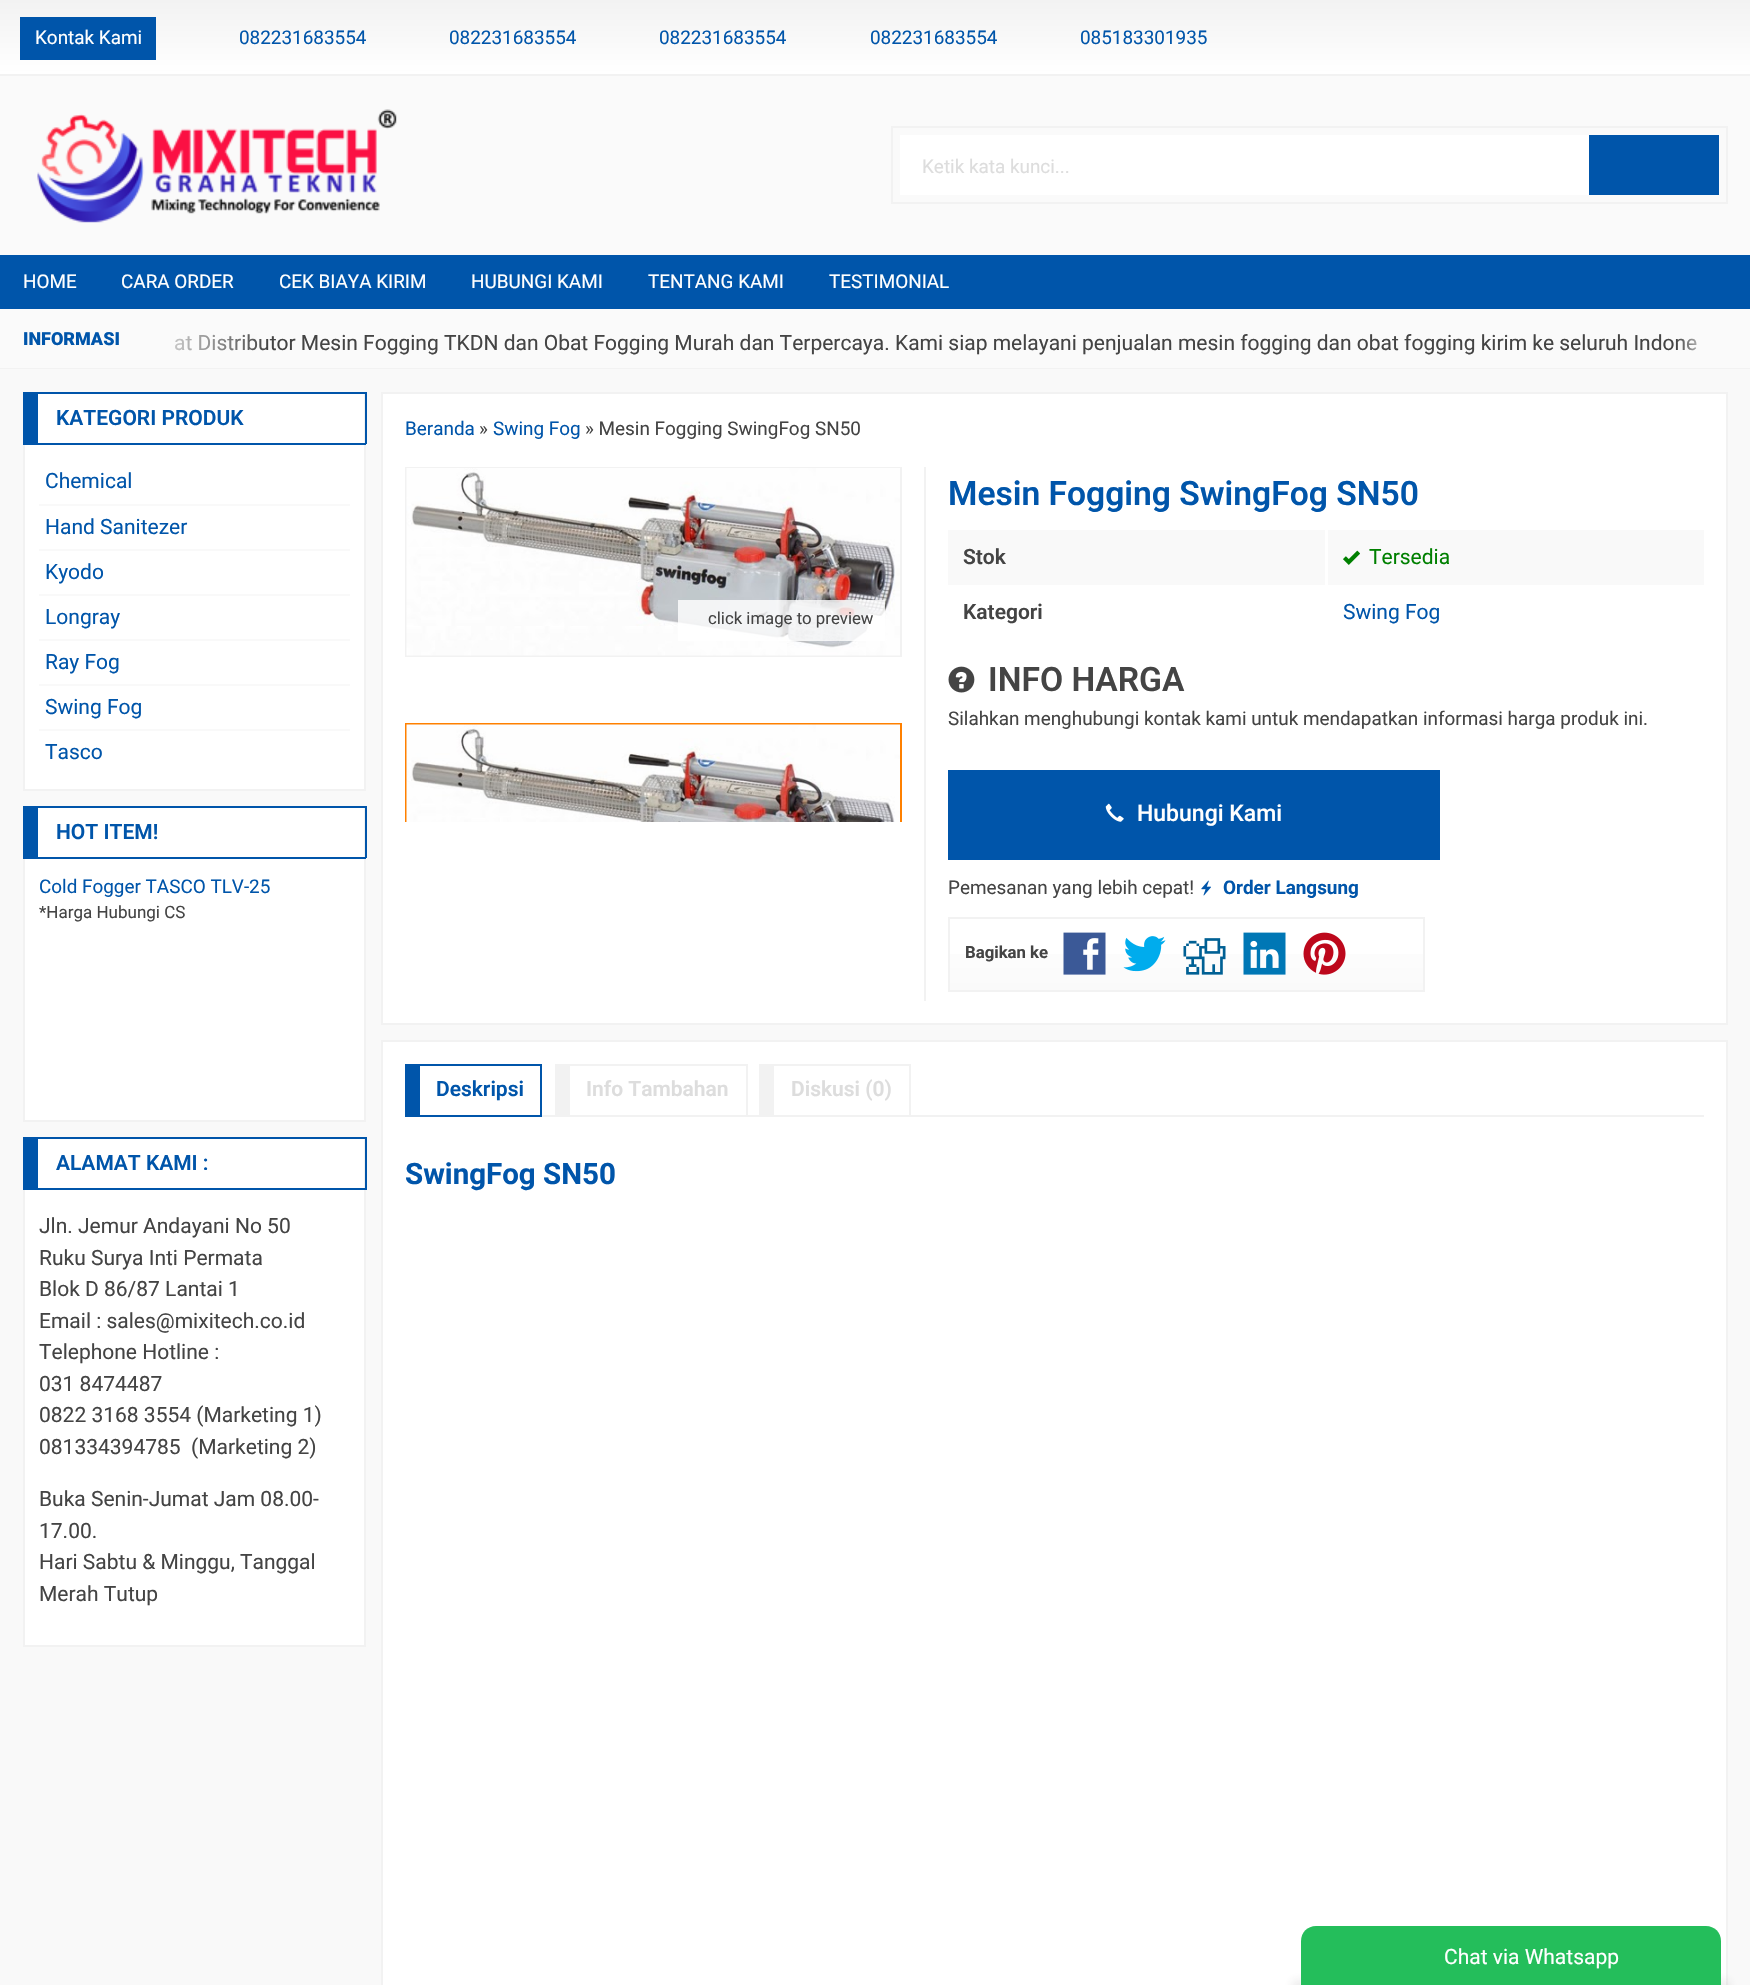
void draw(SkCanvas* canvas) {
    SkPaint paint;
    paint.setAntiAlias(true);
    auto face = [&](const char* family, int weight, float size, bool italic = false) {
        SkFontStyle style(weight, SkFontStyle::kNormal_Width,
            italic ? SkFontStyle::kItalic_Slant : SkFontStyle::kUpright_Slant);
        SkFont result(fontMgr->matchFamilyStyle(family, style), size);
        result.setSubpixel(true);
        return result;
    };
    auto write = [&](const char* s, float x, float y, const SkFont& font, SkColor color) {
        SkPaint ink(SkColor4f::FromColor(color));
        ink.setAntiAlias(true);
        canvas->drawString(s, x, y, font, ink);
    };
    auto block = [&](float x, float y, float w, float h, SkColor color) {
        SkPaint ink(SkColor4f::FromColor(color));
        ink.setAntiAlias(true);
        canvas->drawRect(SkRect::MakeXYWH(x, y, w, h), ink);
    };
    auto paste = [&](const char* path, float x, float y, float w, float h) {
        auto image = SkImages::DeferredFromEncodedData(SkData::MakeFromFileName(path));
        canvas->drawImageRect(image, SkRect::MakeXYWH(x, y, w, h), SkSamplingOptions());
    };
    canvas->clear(SkColorSetRGB(0, 85, 170));
    {
        const SkColor colors[] = {SkColorSetRGB(242, 242, 242), SK_ColorWHITE};
        const float stops[] = {0, 1};
        const SkPoint ends[] = {{875, 0}, {875, 74}};
        paint.setShader(SkGradientShader::MakeLinear(ends, colors, stops, 2, SkTileMode::kClamp));
        paint.setAlpha(255);
    }
    canvas->drawRect(SkRect::MakeXYWH(0, 0, 1750, 74), paint);
    block(0, 74, 1750, 2, SkColorSetRGB(242, 242, 242));
    block(20, 17, 136, 43, SkColorSetRGB(0, 85, 170));
    auto kFont1 = face("Roboto", 400, 18.9f);
    write("Kontak Kami", 35, 44, kFont1, SK_ColorWHITE);
    write("082231683554", 239, 44, kFont1, SkColorSetRGB(0, 85, 170));
    write("082231683554", 449, 44, kFont1, SkColorSetRGB(0, 85, 170));
    write("082231683554", 659, 44, kFont1, SkColorSetRGB(0, 85, 170));
    write("082231683554", 870, 44, kFont1, SkColorSetRGB(0, 85, 170));
    write("085183301935", 1080, 44, kFont1, SkColorSetRGB(0, 85, 170));
    block(0, 76, 1750, 179, SkColorSetRGB(250, 250, 250));
    paste("pic1.png", 37, 109, 360, 114);
    paint.setStyle(SkPaint::kStroke_Style);
    paint.setStrokeWidth(2);
    paint.setShader(nullptr);
    paint.setColor(SkColorSetRGB(242, 242, 242));
    canvas->drawRect(SkRect::MakeXYWH(892, 127, 835, 76), paint);
    block(900, 135, 689, 60, SK_ColorWHITE);
    write("Ketik kata kunci...", 922, 173, kFont1, SkColorSetRGB(221, 221, 221));
    block(1589, 135, 130, 60, SkColorSetRGB(0, 85, 170));
    write("HOME", 23, 288, kFont1, SK_ColorWHITE);
    write("CARA ORDER", 121, 288, kFont1, SK_ColorWHITE);
    write("CEK BIAYA KIRIM", 279, 288, kFont1, SK_ColorWHITE);
    write("HUBUNGI KAMI", 471, 288, kFont1, SK_ColorWHITE);
    write("TENTANG KAMI", 648, 288, kFont1, SK_ColorWHITE);
    write("TESTIMONIAL", 829, 288, kFont1, SK_ColorWHITE);
    block(0, 309, 1750, 59, SkColorSetRGB(250, 250, 250));
    block(0, 368, 1750, 1, SkColorSetRGB(242, 242, 242));
    auto kFont2 = face("Roboto", 400, 21);
    write("at Distributor Mesin Fogging TKDN dan Obat Fogging Murah dan Terpercaya. Kami siap melayani penjualan mesin fogging dan obat fogging kirim ke seluruh Indone", 174, 350, kFont2, SkColorSetRGB(68, 68, 68));
    paint.setStyle(SkPaint::kFill_Style);
    {
        const SkColor colors[] = {SkColorSetRGB(250, 250, 250), SkColorSetRGB(250, 250, 250), SkColorSetARGB(0, 250, 250, 250)};
        const float stops[] = {0, 0.5f, 1};
        const SkPoint ends[] = {{0, 339}, {270, 339}};
        paint.setShader(SkGradientShader::MakeLinear(ends, colors, stops, 3, SkTileMode::kClamp));
        paint.setAlpha(255);
    }
    canvas->drawRect(SkRect::MakeXYWH(175, 334, 92, 17), paint);
    auto kFont3 = face("Roboto", 900, 18);
    write("INFORMASI", 23, 345, kFont3, SkColorSetRGB(0, 85, 170));
    {
        const SkColor colors[] = {SkColorSetRGB(250, 250, 250), SkColorSetRGB(250, 250, 250), SkColorSetARGB(0, 250, 250, 250)};
        const float stops[] = {0, 0.5f, 1};
        const SkPoint ends[] = {{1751, 339}, {1676, 339}};
        paint.setShader(SkGradientShader::MakeLinear(ends, colors, stops, 3, SkTileMode::kClamp));
        paint.setAlpha(255);
    }
    canvas->drawRect(SkRect::MakeXYWH(1677, 338, 20, 13), paint);
    block(0, 369, 1750, 1616, SkColorSetRGB(249, 249, 249));
    paint.setShader(nullptr);
    paint.setColor(SK_ColorWHITE);
    canvas->drawRect(SkRect::MakeXYWH(24, 393, 341, 397), paint);
    paint.setStyle(SkPaint::kStroke_Style);
    paint.setColor(SkColorSetRGB(242, 242, 242));
    canvas->drawRect(SkRect::MakeXYWH(24, 393, 341, 397), paint);
    block(38, 392, 328, 2, SkColorSetRGB(0, 85, 170));
    block(365, 392, 2, 52, SkColorSetRGB(0, 85, 170));
    block(23, 443, 343, 2, SkColorSetRGB(0, 85, 170));
    block(23, 392, 15, 51, SkColorSetRGB(0, 85, 170));
    auto kFont4 = face("Roboto", 600, 21);
    write("KATEGORI PRODUK", 56, 425, kFont4, SkColorSetRGB(0, 85, 170));
    block(39, 504, 311, 2, SkColorSetRGB(249, 249, 249));
    write("Chemical", 45, 488, kFont2, SkColorSetRGB(0, 85, 170));
    block(39, 549, 311, 2, SkColorSetRGB(249, 249, 249));
    write("Hand Sanitezer", 45, 534, kFont2, SkColorSetRGB(0, 85, 170));
    block(39, 594, 311, 2, SkColorSetRGB(249, 249, 249));
    write("Kyodo", 45, 579, kFont2, SkColorSetRGB(0, 85, 170));
    block(39, 639, 311, 2, SkColorSetRGB(249, 249, 249));
    write("Longray", 45, 624, kFont2, SkColorSetRGB(0, 85, 170));
    block(39, 684, 311, 2, SkColorSetRGB(249, 249, 249));
    write("Ray Fog", 45, 669, kFont2, SkColorSetRGB(0, 85, 170));
    block(39, 729, 311, 2, SkColorSetRGB(249, 249, 249));
    write("Swing Fog", 45, 714, kFont2, SkColorSetRGB(0, 85, 170));
    write("Tasco", 45, 759, kFont2, SkColorSetRGB(0, 85, 170));
    paint.setStyle(SkPaint::kFill_Style);
    paint.setColor(SK_ColorWHITE);
    canvas->drawRect(SkRect::MakeXYWH(24, 807, 341, 314), paint);
    paint.setStyle(SkPaint::kStroke_Style);
    paint.setColor(SkColorSetRGB(242, 242, 242));
    canvas->drawRect(SkRect::MakeXYWH(24, 807, 341, 314), paint);
    block(38, 806, 328, 2, SkColorSetRGB(0, 85, 170));
    block(365, 806, 2, 52, SkColorSetRGB(0, 85, 170));
    block(23, 857, 343, 2, SkColorSetRGB(0, 85, 170));
    block(23, 806, 15, 51, SkColorSetRGB(0, 85, 170));
    write("HOT ITEM!", 56, 839, kFont4, SkColorSetRGB(0, 85, 170));
    write("Cold Fogger TASCO TLV-25", 39, 893, kFont1, SkColorSetRGB(0, 85, 170));
    auto kFont5 = face("Roboto", 400, 17);
    write("*Harga Hubungi CS", 39, 918, kFont5, SkColorSetRGB(68, 68, 68));
    paint.setStyle(SkPaint::kFill_Style);
    paint.setColor(SK_ColorWHITE);
    canvas->drawRect(SkRect::MakeXYWH(24, 1138, 341, 508), paint);
    paint.setStyle(SkPaint::kStroke_Style);
    paint.setColor(SkColorSetRGB(242, 242, 242));
    canvas->drawRect(SkRect::MakeXYWH(24, 1138, 341, 508), paint);
    block(38, 1137, 328, 2, SkColorSetRGB(0, 85, 170));
    block(365, 1137, 2, 53, SkColorSetRGB(0, 85, 170));
    block(38, 1188, 328, 2, SkColorSetRGB(0, 85, 170));
    block(23, 1137, 15, 53, SkColorSetRGB(0, 85, 170));
    write("ALAMAT KAMI :", 56, 1170, kFont4, SkColorSetRGB(0, 85, 170));
    write("Jln. Jemur Andayani No 50", 39, 1233, kFont2, SkColorSetRGB(68, 68, 68));
    write("Ruku Surya Inti Permata", 39, 1265, kFont2, SkColorSetRGB(68, 68, 68));
    write("Blok D 86/87 Lantai 1", 39, 1296, kFont2, SkColorSetRGB(68, 68, 68));
    write("Email : sales@mixitech.co.id", 39, 1328, kFont2, SkColorSetRGB(68, 68, 68));
    write("Telephone Hotline :", 39, 1359, kFont2, SkColorSetRGB(68, 68, 68));
    write("031 8474487", 39, 1391, kFont2, SkColorSetRGB(68, 68, 68));
    write("0822 3168 3554 (Marketing 1)", 39, 1422, kFont2, SkColorSetRGB(68, 68, 68));
    write("081334394785  (Marketing 2)", 39, 1454, kFont2, SkColorSetRGB(68, 68, 68));
    write("Buka Senin-Jumat Jam 08.00-", 39, 1506, kFont2, SkColorSetRGB(68, 68, 68));
    write("17.00.", 39, 1538, kFont2, SkColorSetRGB(68, 68, 68));
    write("Hari Sabtu & Minggu, Tanggal", 39, 1569, kFont2, SkColorSetRGB(68, 68, 68));
    write("Merah Tutup", 39, 1601, kFont2, SkColorSetRGB(68, 68, 68));
    paint.setStyle(SkPaint::kFill_Style);
    paint.setColor(SK_ColorWHITE);
    canvas->drawRect(SkRect::MakeXYWH(382, 393, 1345, 631), paint);
    paint.setStyle(SkPaint::kStroke_Style);
    paint.setColor(SkColorSetRGB(242, 242, 242));
    canvas->drawRect(SkRect::MakeXYWH(382, 393, 1345, 631), paint);
    write("Beranda", 405, 435, kFont1, SkColorSetRGB(0, 85, 170));
    write("»", 479, 435, kFont1, SkColorSetRGB(68, 68, 68));
    write("Swing Fog", 493, 435, kFont1, SkColorSetRGB(0, 85, 170));
    write("» Mesin Fogging SwingFog SN50", 585, 435, kFont1, SkColorSetRGB(68, 68, 68));
    canvas->drawRect(SkRect::MakeXYWH(406, 468, 495, 188), paint);
    paste("pic2.png", 406, 468, 494, 188);
    block(678, 600, 207, 41, SkColorSetARGB(204, 255, 255, 255));
    auto kFont6 = face("Roboto", 400, 16.75f);
    write("click image to preview", 708, 624, kFont6, SkColorSetRGB(68, 68, 68));
    canvas->save();
    canvas->clipRect(SkRect::MakeXYWH(405, 672, 497, 150));
    paint.setColor(SkColorSetRGB(255, 128, 0));
    canvas->drawRect(SkRect::MakeXYWH(406, 724, 495, 189), paint);
    canvas->restore();
    paste("pic3.png", 406, 724, 494, 98);
    block(924, 467, 2, 534, SkColorSetRGB(242, 242, 242));
    auto kFont7 = face("Roboto", 600, 33.6f);
    write("Mesin Fogging SwingFog SN50", 948, 505, kFont7, SkColorSetRGB(0, 85, 170));
    block(948, 530, 756, 55, SkColorSetRGB(249, 249, 249));
    write("Stok", 963, 564, kFont4, SkColorSetRGB(68, 68, 68));
    paste("pic4.png", 1343, 550, 17, 15);
    write("Tersedia", 1369, 564, kFont2, SkColorSetRGB(0, 128, 0));
    block(1325, 528, 3, 59, SK_ColorWHITE);
    write("Kategori", 963, 619, kFont4, SkColorSetRGB(68, 68, 68));
    write("Swing Fog", 1343, 619, kFont2, SkColorSetRGB(0, 85, 170));
    paste("pic5.png", 948, 666, 27, 27);
    write("INFO HARGA", 988, 691, kFont7, SkColorSetRGB(68, 68, 68));
    write("Silahkan menghubungi kontak kami untuk mendapatkan informasi harga produk ini.", 948, 725, kFont1, SkColorSetRGB(68, 68, 68));
    block(948, 770, 492, 90, SkColorSetRGB(0, 85, 170));
    paste("pic6.png", 1105, 803, 19, 19);
    auto kFont8 = face("Roboto", 500, 23);
    write("Hubungi Kami", 1137, 821, kFont8, SK_ColorWHITE);
    write("Pemesanan yang lebih cepat!", 948, 894, kFont1, SkColorSetRGB(68, 68, 68));
    paste("pic7.png", 1201, 880, 10, 16);
    auto kFont9 = face("Roboto", 700, 18.9f);
    write("Order Langsung", 1223, 894, kFont9, SkColorSetRGB(0, 85, 170));
    paint.setStyle(SkPaint::kFill_Style);
    {
        const SkColor colors[] = {SkColorSetRGB(250, 250, 250), SK_ColorWHITE};
        const float stops[] = {0, 1};
        const SkPoint ends[] = {{1187, 990}, {1187, 918}};
        paint.setShader(SkGradientShader::MakeLinear(ends, colors, stops, 2, SkTileMode::kClamp));
        paint.setAlpha(255);
    }
    canvas->drawRect(SkRect::MakeXYWH(950, 954, 473, 36), paint);
    paint.setStyle(SkPaint::kStroke_Style);
    paint.setShader(nullptr);
    paint.setColor(SkColorSetRGB(242, 242, 242));
    canvas->drawRect(SkRect::MakeXYWH(949, 918, 475, 73), paint);
    auto kFont10 = face("Roboto", 700, 16.75f);
    write("Bagikan ke", 965, 958, kFont10, SkColorSetRGB(68, 68, 68));
    paste("pic8.png", 1063, 932, 43, 43);
    paste("pic9.png", 1123, 936, 43, 36);
    paste("pic10.png", 1183, 938, 43, 37);
    paste("pic11.png", 1243, 932, 43, 43);
    paste("pic12.png", 1303, 932, 43, 43);
    paint.setStyle(SkPaint::kFill_Style);
    paint.setColor(SK_ColorWHITE);
    canvas->drawRect(SkRect::MakeXYWH(382, 1041, 1345, 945), paint);
    paint.setStyle(SkPaint::kStroke_Style);
    paint.setColor(SkColorSetRGB(242, 242, 242));
    canvas->drawRect(SkRect::MakeXYWH(382, 1041, 1345, 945), paint);
    block(542, 1115, 1162, 2, SkColorSetRGB(242, 242, 242));
    block(420, 1064, 122, 2, SkColorSetRGB(0, 85, 170));
    block(540, 1064, 2, 52, SkColorSetRGB(0, 85, 170));
    block(405, 1115, 137, 2, SkColorSetRGB(0, 85, 170));
    block(405, 1064, 15, 51, SkColorSetRGB(0, 85, 170));
    write("Deskripsi", 436, 1096, kFont4, SkColorSetRGB(0, 85, 170));
    block(570, 1064, 177, 2, SkColorSetRGB(242, 242, 242));
    block(746, 1064, 2, 52, SkColorSetRGB(242, 242, 242));
    block(555, 1064, 15, 51, SkColorSetRGB(242, 242, 242));
    write("Info Tambahan", 586, 1096, kFont4, SkColorSetRGB(221, 221, 221));
    block(774, 1064, 137, 2, SkColorSetRGB(242, 242, 242));
    block(909, 1064, 2, 52, SkColorSetRGB(242, 242, 242));
    block(759, 1064, 15, 51, SkColorSetRGB(242, 242, 242));
    write("Diskusi (0)", 791, 1096, kFont4, SkColorSetRGB(221, 221, 221));
    auto kFont11 = face("Roboto", 700, 29.5f);
    write("SwingFog SN50", 405, 1184, kFont11, SkColorSetRGB(0, 85, 170));
    paint.setStyle(SkPaint::kFill_Style);
    paint.setColor(SkColorSetARGB(23, 51, 51, 51));
    paint.setMaskFilter(SkMaskFilter::MakeBlur(kNormal_SkBlurStyle, 4.5f));
    canvas->drawRect(SkRect::MakeXYWH(1292, 1980, 438, 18), paint);
    paint.setMaskFilter(nullptr);
    paint.setColor(SkColorSetRGB(36, 190, 91));
    canvas->drawPath(SkPathBuilder().moveTo(1316, 1926).lineTo(1706, 1926).cubicTo(1714.5f, 1926, 1721, 1932.5f, 1721, 1941).lineTo(1721, 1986).lineTo(1301, 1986).lineTo(1301, 1941).cubicTo(1301, 1932.5f, 1307.5f, 1926, 1316, 1926).close().detach(), paint);
    write("Chat via Whatsapp", 1444, 1964, kFont2, SK_ColorWHITE);
}
